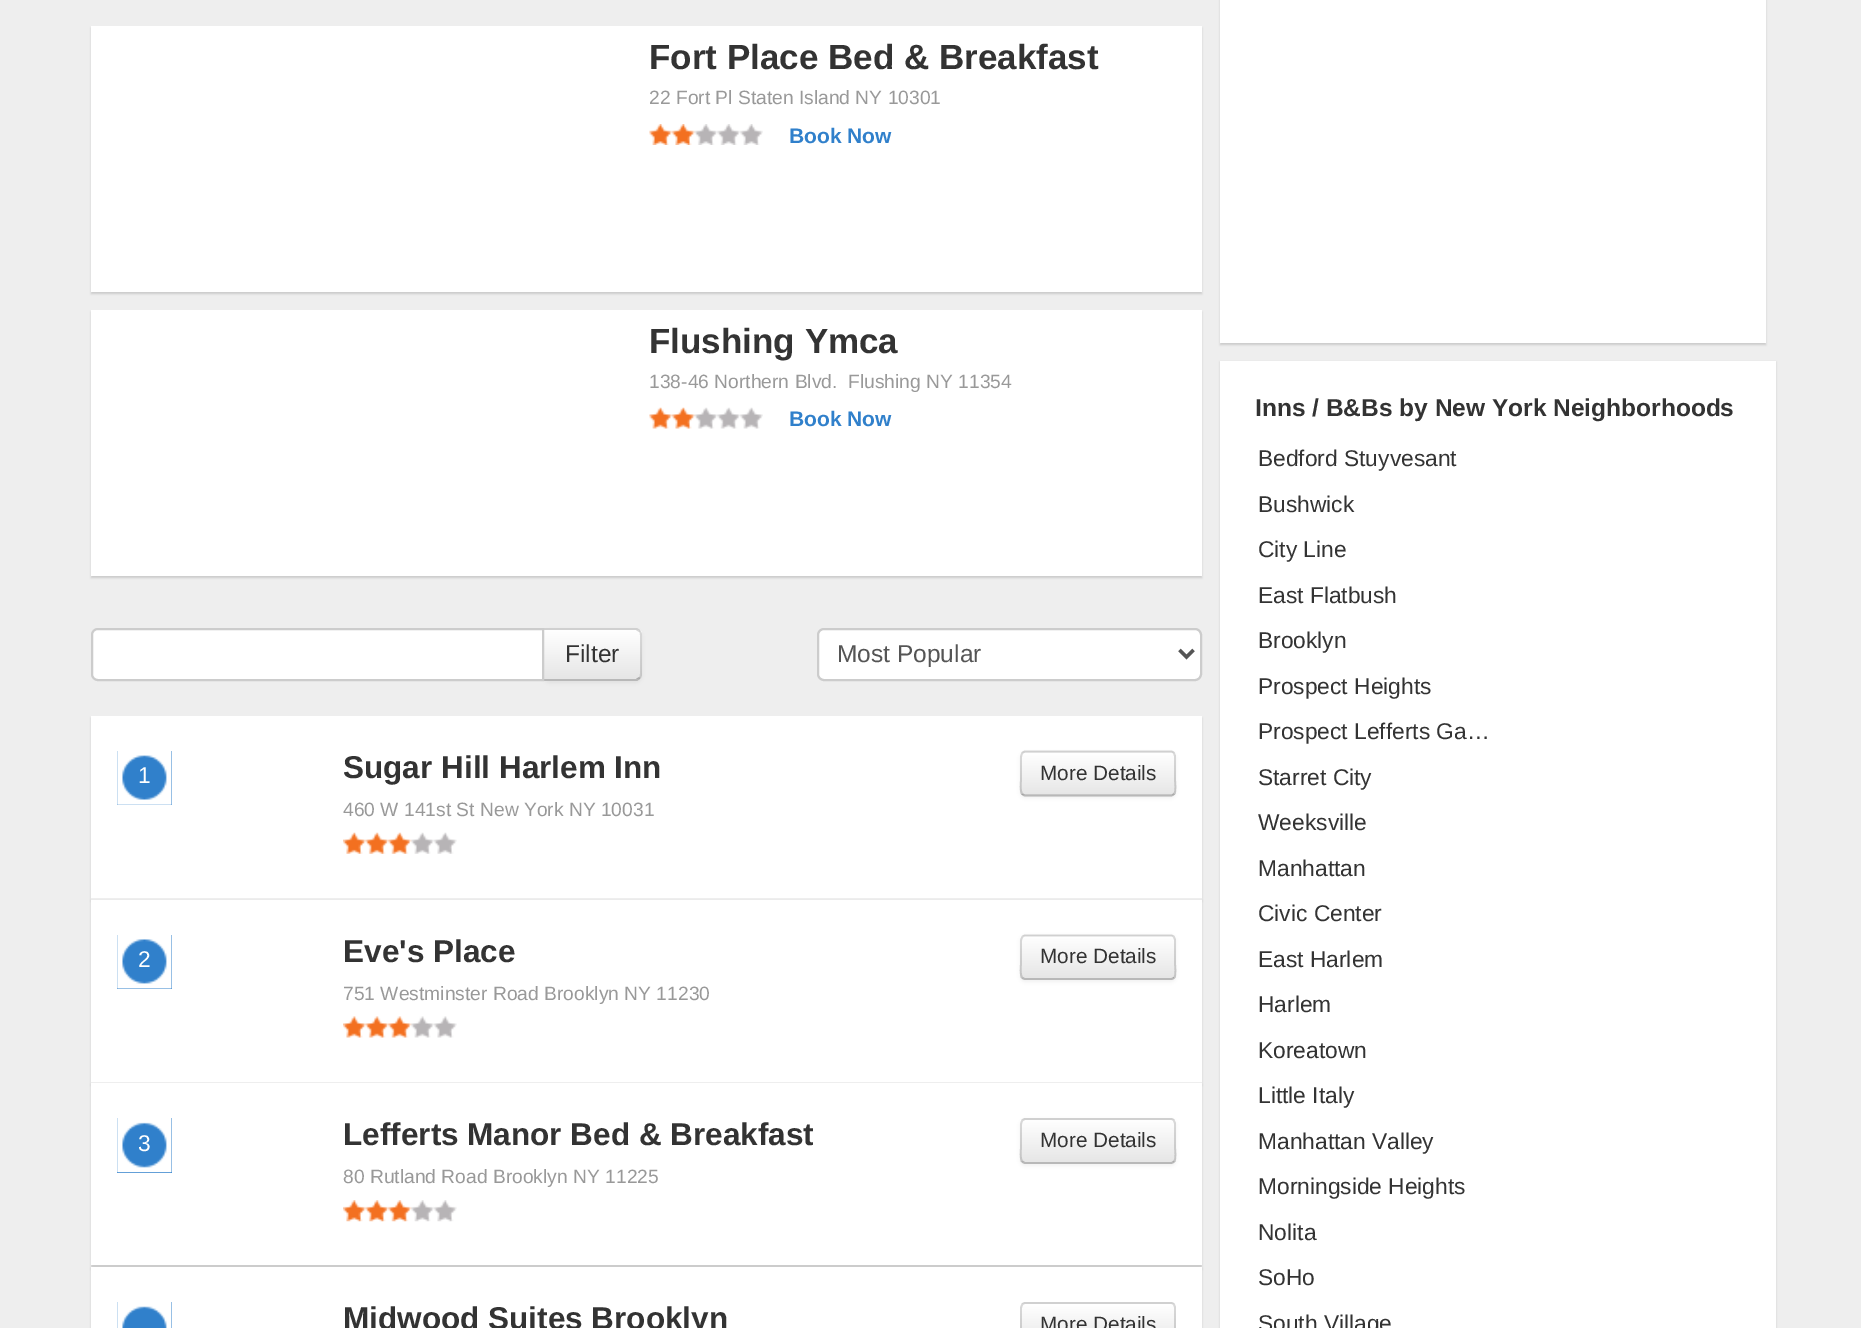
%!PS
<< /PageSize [1861 1328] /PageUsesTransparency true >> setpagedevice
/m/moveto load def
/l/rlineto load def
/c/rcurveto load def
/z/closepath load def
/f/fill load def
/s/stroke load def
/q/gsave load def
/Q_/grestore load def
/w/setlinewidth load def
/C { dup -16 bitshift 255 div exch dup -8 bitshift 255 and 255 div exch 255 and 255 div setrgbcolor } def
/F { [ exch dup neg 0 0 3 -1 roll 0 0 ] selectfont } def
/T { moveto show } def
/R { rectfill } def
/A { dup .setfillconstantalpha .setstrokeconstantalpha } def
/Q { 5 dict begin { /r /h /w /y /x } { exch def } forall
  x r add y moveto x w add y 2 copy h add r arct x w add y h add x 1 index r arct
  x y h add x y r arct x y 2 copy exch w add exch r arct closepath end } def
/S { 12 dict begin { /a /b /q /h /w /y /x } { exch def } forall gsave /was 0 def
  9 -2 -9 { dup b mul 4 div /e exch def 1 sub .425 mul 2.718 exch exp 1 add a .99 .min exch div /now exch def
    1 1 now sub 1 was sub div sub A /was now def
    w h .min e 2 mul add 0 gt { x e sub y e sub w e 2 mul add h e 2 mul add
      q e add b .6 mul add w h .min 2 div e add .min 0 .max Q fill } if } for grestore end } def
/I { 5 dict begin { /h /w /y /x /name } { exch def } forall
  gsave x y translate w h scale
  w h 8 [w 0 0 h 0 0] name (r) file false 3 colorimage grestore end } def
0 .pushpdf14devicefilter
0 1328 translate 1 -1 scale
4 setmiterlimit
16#EEEEEE C
0 0 1861 1328 R
16#CBCBCB C
91 28 1111 266 0 1 1 S
16#FFFFFF C
91 26 1111 266 R
/LiberationSans-Bold 35 F
16#333333 C
(Fort Place Bed & Breakfast) 649 69 T
/LiberationSans-Regular 19.25 F
16#999999 C
(22 Fort Pl Staten Island NY 10301) 649 104 T
(1.rgb) 649 124 114 21 I
/LiberationSans-Bold 21 F
16#3080CB C
(Book Now) 789 143 T
16#CBCBCB C
91 312 1111 266 0 1 1 S
16#FFFFFF C
91 310 1111 266 R
/LiberationSans-Bold 35 F
16#333333 C
(Flushing Ymca) 649 353 T
/LiberationSans-Regular 19.25 F
16#999999 C
(138-46 Northern Blvd.) 649 388 T
(Flushing NY 11354) 848 388 T
(2.rgb) 649 407 114 22 I
/LiberationSans-Bold 21 F
16#3080CB C
(Book Now) 789 426 T
16#000000 C
543 630 99 53 7 2 .05 S
16#F5F5F5 C
543 628 m 92 0 l 4 0 7 3 7 7 c 0 39 l 0 4 -3 7 -7 7 c -92 0 l z f
q
543 628 m 92 0 l 4 0 7 3 7 7 c 0 39 l 0 4 -3 7 -7 7 c -92 0 l z clip newpath
q 544 630 m 98 0 l 0 49 l -98 0 l z clip newpath
<< /ShadingType 2 /ColorSpace /DeviceRGB /Coords [592 630 592 679] /Extend [true true] /Function << /FunctionType 2 /Domain [0 1] /C0 [1 1 1] /C1 [.902 .902 .902] /N 1 >> >> shfill Q_
Q_
0.2 A
16#FFFFFF C
544 632 m 91 0 l 6 0 5 7 5 12 c 0 33 l 1 -1 1 -2 1 -3 c 0 -39 l 0 -3 -2 -5 -5 -5 c -92 0 l z f
0.15 A
16#000000 C
542 628 m 95 0 l 3 2 l -1 2 l -3 -2 l -92 0 l z f
640 630 m 1 1 2 3 2 5 c 0 39 l 0 2 -1 4 -2 5 c -1 -2 l 1 0 1 -2 1 -3 c 0 -39 l 0 -1 0 -3 -1 -3 c z f
0.25 A
640 679 m -3 2 l -95 0 l 2 -2 l 92 0 l 3 -2 l z f
1 A
16#FFFFFF C
98 629 m 445 0 l 0 51 l -445 0 l -3.5 0 -6 -2.5 -6 -6 c 0 -39 l 0 -3.5 2.5 -6 6 -6 c z q f Q_
16#CCCCCC C
2 w
s
/LiberationSans-Regular 24.5 F
16#333333 C
(Filter) 565 662 T
16#FFFFFF C
818 629 383 51 6 Q q f Q_
16#CCCCCC C
s
16#555555 C
3.5 w
1179.5 650 m 7 7 l 7 -7 l s
(Most Popular) 837 662 T
16#CBCBCB C
91 718 1111 183 0 1 1 S
16#FFFFFF C
91 716 1111 182 R
16#EEEEEE C
91 898 1111 2 R
16#3080CB C
117 751 55 54 R
(3.rgb) 117 751 55 54 I
/LiberationSans-Regular 22.75 F
16#FFFFFF C
(1) 138 783 T
/LiberationSans-Bold 31.5 F
16#333333 C
(Sugar Hill Harlem Inn) 343 778 T
16#000000 C
1020 753 156 45 5 2 .05 S
16#F5F5F5 C
1020 751 156 45 5 Q f
q
1020 751 156 45 5 Q clip newpath
q 1020 753 m 156 0 l 0 42 l -156 0 l z clip newpath
<< /ShadingType 2 /ColorSpace /DeviceRGB /Coords [1098 753 1098 795] /Extend [true true] /Function << /FunctionType 2 /Domain [0 1] /C0 [1 1 1] /C1 [.902 .902 .902] /N 1 >> >> shfill Q_
Q_
0.25 A
16#000000 C
1.8 w
1174 794 m -1 1 -2 1.5 -3 1.5 c -145.5 0 l -1 0 -2.5 -.5 -3 -1.5 c s
0.15 A
1022.5 794 m -3 -2.5 -1.5 -11.5 -1.5 -14.5 c 0 -17.5 l 0 -3.5 -1 -10.5 4.5 -10.5 c 145.5 0 l 5 0 4 7 4 10.5 c 0 17.5 l 0 3 1.5 12 -1 14.5 c s
/LiberationSans-Regular 20.75 F
1 A
16#333333 C
(More Details) 1040 780 T
/LiberationSans-Regular 19.25 F
16#999999 C
(460 W 141st St New York NY 10031) 343 816 T
(4.rgb) 343 832 114 22 I
16#CBCBCB C
91 901 1111 184 0 1 1 S
16#FFFFFF C
91 900 1111 182 R
16#EEEEEE C
91 1082 1111 1 R
16#3080CB C
117 935 55 54 R
(5.rgb) 117 935 55 54 I
/LiberationSans-Regular 22.75 F
16#FFFFFF C
(2) 138 967 T
/LiberationSans-Bold 31.5 F
16#333333 C
(Eve's Place) 343 962 T
16#000000 C
1020 936 156 46 5 2 .05 S
16#F5F5F5 C
1020 935 156 45 5 Q f
q
1020 935 156 45 5 Q clip newpath
q 1020 936 m 156 0 l 0 42 l -156 0 l z clip newpath
<< /ShadingType 2 /ColorSpace /DeviceRGB /Coords [1098 936 1098 978] /Extend [true true] /Function << /FunctionType 2 /Domain [0 1] /C0 [1 1 1] /C1 [.902 .902 .902] /N 1 >> >> shfill Q_
Q_
0.25 A
16#000000 C
1174 978 m -1 .5 -2 1 -3 1 c -145.5 0 l -1 0 -2.5 -.5 -3 -1 c s
0.15 A
1022.5 978 m -3 -3 -1.5 -12 -1.5 -15 c 0 -17.5 l 0 -3.5 -1 -10 4.5 -10 c 145.5 0 l 5 0 4 6.5 4 10 c 0 17.5 l 0 3 1.5 12 -1 15 c s
/LiberationSans-Regular 20.75 F
1 A
16#333333 C
(More Details) 1040 963 T
/LiberationSans-Regular 19.25 F
16#999999 C
(751 Westminster Road Brooklyn NY 11230) 343 1000 T
(6.rgb) 343 1016 114 22 I
16#CBCBCB C
91 1085 1111 184 0 1 1 S
16#FFFFFF C
91 1083 1111 182 R
16#3080CB C
117 1118 55 55 R
(7.rgb) 117 1118 55 55 I
/LiberationSans-Regular 22.75 F
16#FFFFFF C
(3) 138 1151 T
/LiberationSans-Bold 31.5 F
16#333333 C
(Lefferts Manor Bed & Breakfast) 343 1145 T
16#000000 C
1020 1120 156 46 5 2 .05 S
16#F5F5F5 C
1020 1118 156 46 5 Q f
q
1020 1118 156 46 5 Q clip newpath
q 1020 1120 m 156 0 l 0 42 l -156 0 l z clip newpath
<< /ShadingType 2 /ColorSpace /DeviceRGB /Coords [1098 1120 1098 1162] /Extend [true true] /Function << /FunctionType 2 /Domain [0 1] /C0 [1 1 1] /C1 [.902 .902 .902] /N 1 >> >> shfill Q_
Q_
0.25 A
16#000000 C
1174 1161.5 m -1 1 -2 1.5 -3 1.5 c -145.5 0 l -1 0 -2.5 -.5 -3 -1.5 c s
0.15 A
1022.5 1161.5 m -3 -2.5 -1.5 -11.5 -1.5 -14.5 c 0 -17.5 l 0 -3.5 -1 -10.5 4.5 -10.5 c 145.5 0 l 5 0 4 7 4 10.5 c 0 17.5 l 0 3 1.5 12 -1 14.5 c s
/LiberationSans-Regular 20.75 F
1 A
16#333333 C
(More Details) 1040 1147 T
/LiberationSans-Regular 19.25 F
16#999999 C
(80 Rutland Road Brooklyn NY 11225) 343 1183 T
(8.rgb) 343 1200 114 22 I
16#CBCBCB C
91 1269 1111 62 0 1 1 S
16#FFFFFF C
91 1267 1111 61 R
16#3080CB C
117 1302 55 26 R
(9.rgb) 117 1302 55 26 I
/LiberationSans-Bold 31.5 F
16#333333 C
(Midwood Suites Brooklyn) 343 1329 T
16#F5F5F5 C
1020 1302 156 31 5 Q f
q
1020 1302 156 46 5 Q clip newpath
q 1020 1304 m 156 0 l 0 24 l -156 0 l z clip newpath
<< /ShadingType 2 /ColorSpace /DeviceRGB /Coords [1098 1304 1098 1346] /Extend [true true] /Function << /FunctionType 2 /Domain [0 1] /C0 [1 1 1] /C1 [.902 .902 .902] /N 1 >> >> shfill Q_
Q_
0.15 A
16#000000 C
1022.5 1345.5 m -3 -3 -1.5 -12 -1.5 -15 c 0 -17.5 l 0 -3.5 -1 -10 4.5 -10 c 145.5 0 l 5 0 4 6.5 4 10 c 0 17.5 l 0 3 1.5 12 -1 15 c s
/LiberationSans-Regular 20.75 F
1 A
16#333333 C
(More Details) 1040 1331 T
16#CBCBCB C
1220 -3 546 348 0 1 1 S
16#FFFFFF C
1220 0 546 343 R
16#CBCBCB C
1220 362 556 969 0 1 1 S
16#FFFFFF C
1220 361 556 967 R
/LiberationSans-Bold 24.5 F
16#333333 C
(Inns / B&Bs by New York Neighborhoods) 1255 416 T
/LiberationSans-Regular 22.75 F
(Bedford Stuyvesant) 1258 466 T
(Bushwick) 1258 512 T
(City Line) 1258 557 T
(East Flatbush) 1258 603 T
(Brooklyn) 1258 648 T
(Prospect Heights) 1258 694 T
(Prospect Lefferts Ga…) 1258 739 T
(Starret City) 1258 785 T
(Weeksville) 1258 830 T
(Manhattan) 1258 876 T
(Civic Center) 1258 921 T
(East Harlem) 1258 967 T
(Harlem) 1258 1012 T
(Koreatown) 1258 1058 T
(Little Italy) 1258 1103 T
(Manhattan Valley) 1258 1149 T
(Morningside Heights) 1258 1194 T
(Nolita) 1258 1240 T
(SoHo) 1258 1285 T
(South Village) 1258 1331 T
.poppdf14devicefilter showpage
